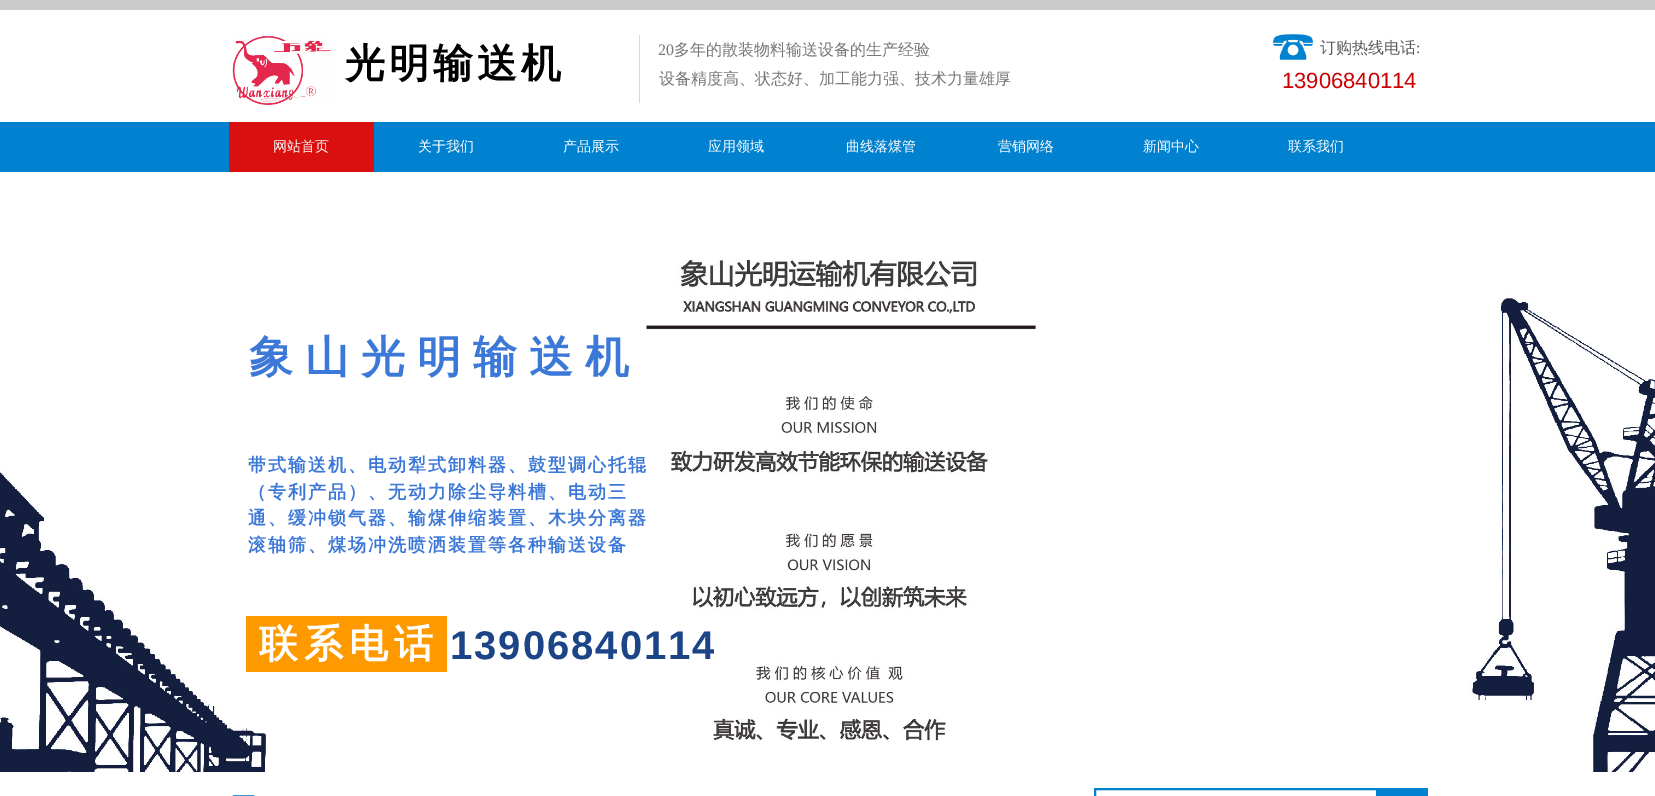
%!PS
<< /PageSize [1655 796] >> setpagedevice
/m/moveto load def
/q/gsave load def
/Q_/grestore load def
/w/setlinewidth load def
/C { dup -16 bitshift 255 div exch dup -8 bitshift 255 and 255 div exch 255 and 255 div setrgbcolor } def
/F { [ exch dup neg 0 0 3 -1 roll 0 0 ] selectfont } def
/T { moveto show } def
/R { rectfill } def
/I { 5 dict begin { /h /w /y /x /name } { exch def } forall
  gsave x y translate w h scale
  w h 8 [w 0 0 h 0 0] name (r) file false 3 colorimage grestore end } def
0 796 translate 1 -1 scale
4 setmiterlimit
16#FFFFFF C
0 0 1655 796 R
16#CCCCCC C
0 0 1655 10 R
(1.rgb) 232 36 99 70 I
/WenQuanYiZenHei-Bold 40 F
16#000000 C
345 77 m 4 0 (光明输送机) ashow
16#D9D9D9 C
639 35 1 68 R
/LiberationSerif-Regular 16 F
16#777777 C
(20) 658 55 T
/WenQuanYiZenHei-Medium 16 F
(多年的散装物料输送设备的生产经验) 674 55 T
(2.rgb) 1273 34 40 26 I
16#5A5A5A C
(订购热线电话) 1320 53 T
/LiberationSerif-Regular 16 F
(:) 1416 53 T
/WenQuanYiZenHei-Medium 16 F
16#777777 C
(设备精度高、状态好、加工能力强、技术力量雄厚) 659 84 T
/LiberationSans-Regular 22 F
16#CC0000 C
(13906840114) 1282 88 T
16#0082D0 C
0 122 1655 50 R
16#DA1010 C
229 122 145 50 R
/WenQuanYiZenHei-Medium 14 F
16#FFFFFF C
(网站首页) 273 151 T
(关于我们) 418 151 T
(产品展示) 563 151 T
(应用领域) 708 151 T
(曲线落煤管) 846 151 T
(营销网络) 998 151 T
(新闻中心) 1143 151 T
(联系我们) 1288 151 T
(3.rgb) 0 259 1655 513 I
/WenQuanYiZenHei-Bold 44 F
16#3C78D8 C
249 372 m 12 0 (象山光明输送机) ashow
/WenQuanYiZenHei-Bold 18 F
248 471 m 2 0 (带式输送机、电动犁式卸料器、鼓型调心托辊) ashow
248 498 m 2 0 (（专利产品）、无动力除尘导料槽、电动三) ashow
248 524 m 2 0 (通、缓冲锁气器、输煤伸缩装置、木块分离器) ashow
248 551 m 2 0 (滚轴筛、煤场冲洗喷洒装置等各种输送设备) ashow
16#FE9900 C
246 616 201 56 R
q
259 616 186 50 rectclip
/WenQuanYiZenHei-Bold 39 F
16#FFFFFF C
259 657 m 6 0 (联系电话) ashow
Q_
/LiberationSans-Bold 40 F
16#1C4587 C
450 659 m 2 0 (13906840114) ashow
(4.rgb) 232 795 23 1 I
16#0082D0 C
2 w
1095 789 282 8 rectstroke
1378 788 50 8 R
showpage
